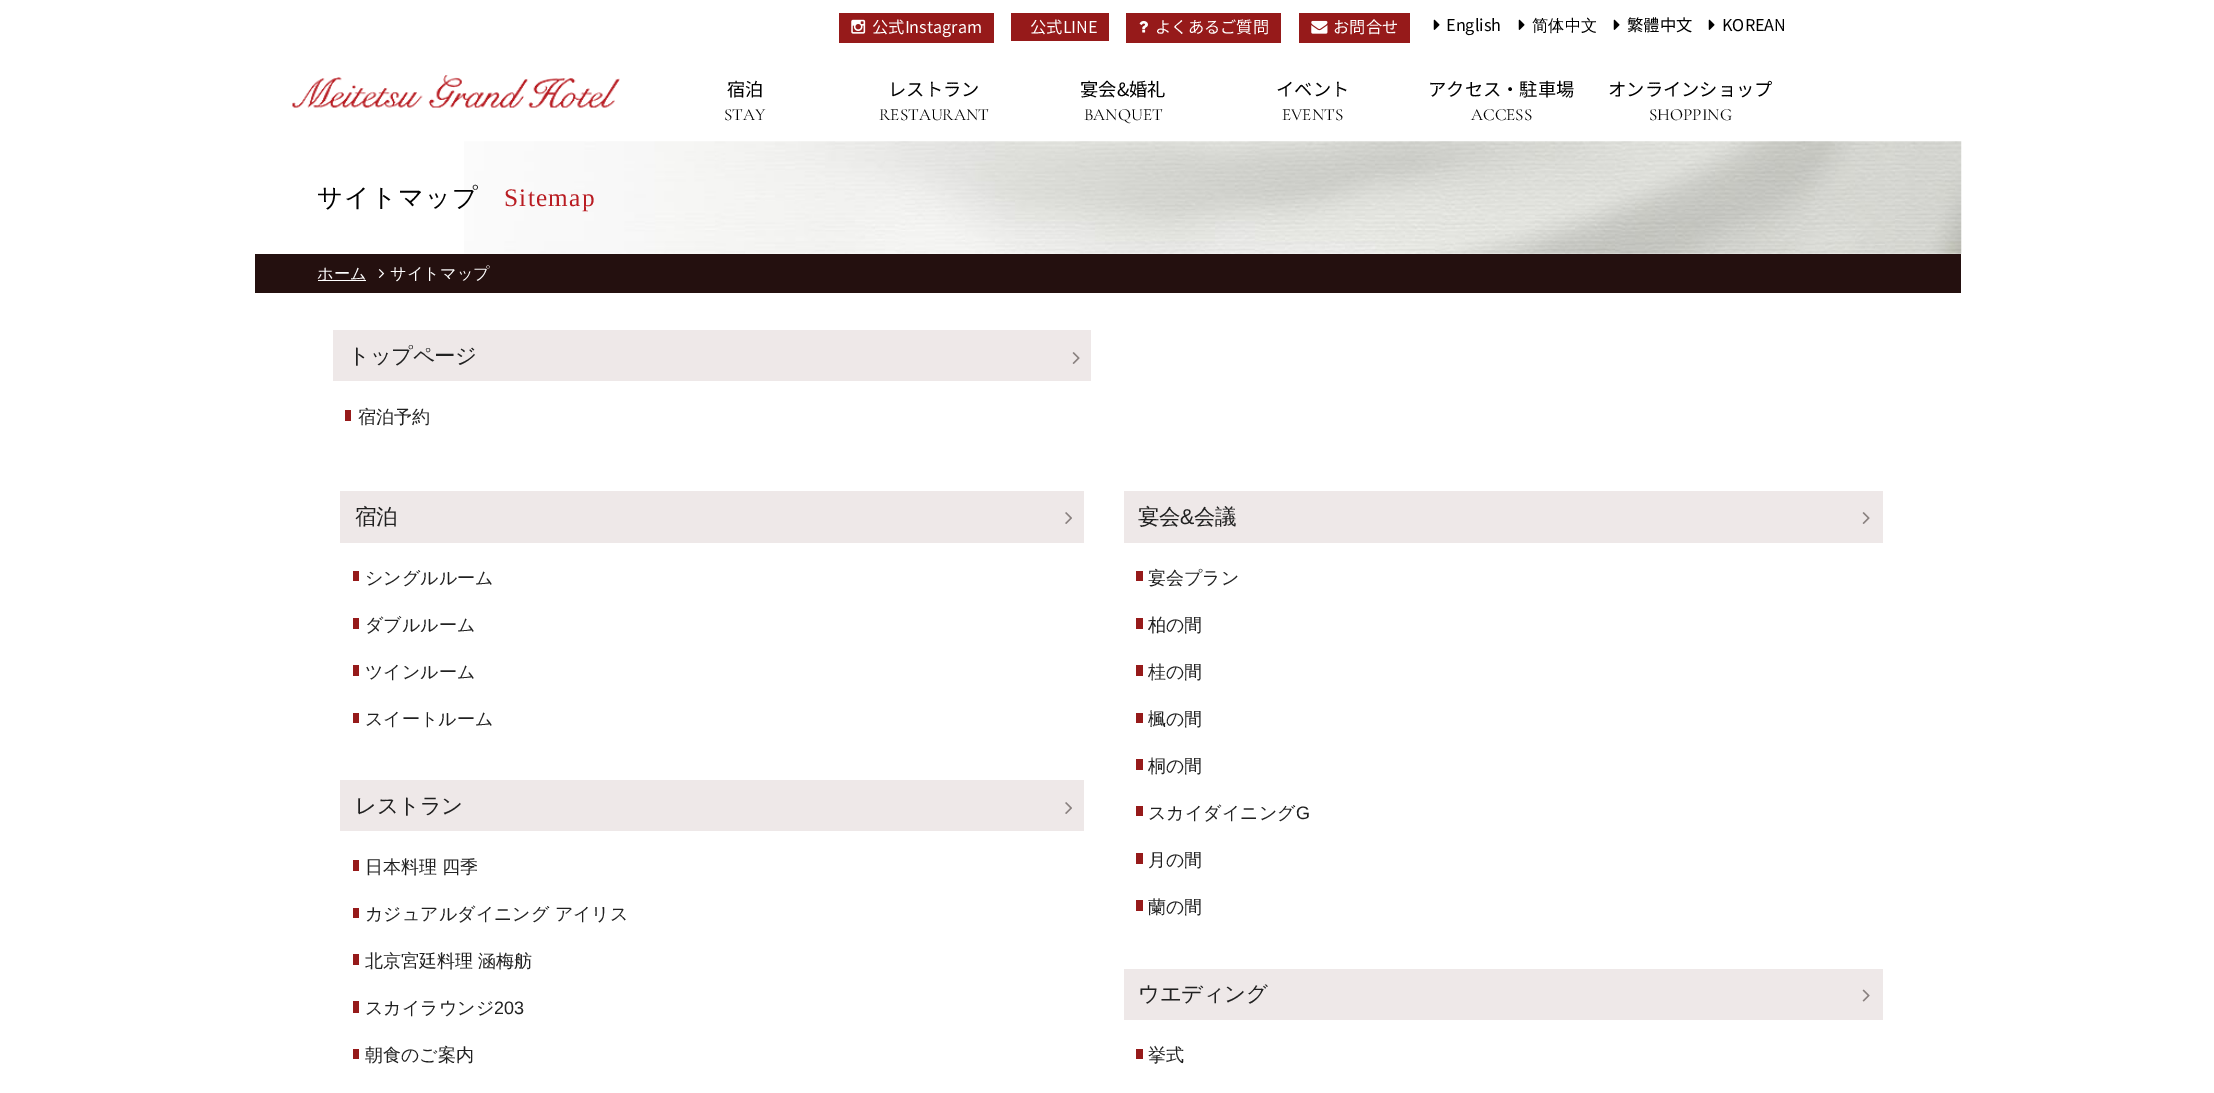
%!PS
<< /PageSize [2214 1093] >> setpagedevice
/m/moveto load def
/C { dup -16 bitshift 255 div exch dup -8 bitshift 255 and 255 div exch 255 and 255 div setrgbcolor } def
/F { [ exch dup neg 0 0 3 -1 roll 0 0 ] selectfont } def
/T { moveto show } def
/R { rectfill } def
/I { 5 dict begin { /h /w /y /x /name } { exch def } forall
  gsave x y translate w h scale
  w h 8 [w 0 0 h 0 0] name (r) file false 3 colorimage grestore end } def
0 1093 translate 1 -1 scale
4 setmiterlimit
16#FFFFFF C
0 0 2214 1093 R
(1.rgb) 292 75 328 33 I
16#961A1A C
839 13 155 30 R
(2.rgb) 851 19 15 15 I
/NotoSansJP-Regular 16.25 F
16#FFFFFF C
(公式Instagram) 872 33 T
16#961A1A C
1011 13 98 28 R
16#FFFFFF C
(公式LINE) 1030 33 T
16#961A1A C
1126 13 155 30 R
(3.rgb) 1139 20 9 13 I
16#FFFFFF C
(よくあるご質問) 1155 33 T
16#961A1A C
1299 13 111 30 R
(4.rgb) 1311 20 17 14 I
16#FFFFFF C
(お問合せ) 1333 33 T
(5.rgb) 1433 19 7 11 I
16#000000 C
(English) 1446 31 T
(5.rgb) 1518 19 7 11 I
/WenQuanYiZenHei-Medium 16.25 F
(简体中文) 1532 31 T
(5.rgb) 1613 19 7 11 I
/NotoSansJP-Regular 16.25 F
(繁體中文) 1627 31 T
(5.rgb) 1708 19 7 11 I
(KOREAN) 1722 31 T
/NotoSansJP-Regular 18.25 F
(宿泊) 727 96 T
/CormorantGaramond-Light 17 F
(STAY) 724 120 T
/NotoSansJP-Regular 18.25 F
(レストラン) 888 96 T
/CormorantGaramond-Light 17 F
(RESTAURANT) 879 120 T
/NotoSansJP-Regular 18.25 F
(宴会&婚礼) 1080 96 T
/CormorantGaramond-Light 17 F
(BANQUET) 1084 120 T
/NotoSansJP-Regular 18.25 F
(イベント) 1276 96 T
/CormorantGaramond-Light 17 F
(EVENTS) 1282 120 T
/NotoSansJP-Regular 18.25 F
(アクセス・駐車場) 1428 96 T
/CormorantGaramond-Light 17 F
(ACCESS) 1471 120 T
/NotoSansJP-Regular 18.25 F
(オンラインショップ) 1608 96 T
/CormorantGaramond-Light 17 F
(SHOPPING) 1649 120 T
(6.rgb) 464 141 1498 113 I
/WenQuanYiZenHei-Medium 25.25 F
317 206 m 1.25 0 (サイトマップ) ashow
/LiberationSerif-Regular 25.25 F
16#B91C22 C
504 206 m 1.25 0 (Sitemap) ashow
16#24100F C
255 254 1706 39 R
16#FFFFFF C
318 280 48 1 R
/WenQuanYiZenHei-Medium 16.25 F
(ホーム) 317 279 T
(7.rgb) 378 269 7 9 I
(サイトマップ) 390 279 T
16#EEE8E8 C
333 330 758 51 R
/WenQuanYiZenHei-Medium 21.5 F
16#212121 C
348 363 m -.5 0 (トップページ) ashow
(8.rgb) 1072 352 8 12 I
16#961A1A C
345 410 6 11 R
/WenQuanYiZenHei-Medium 18 F
16#212121 C
(宿泊予約) 358 423 T
16#EEE8E8 C
340 491 744 52 R
/WenQuanYiZenHei-Medium 21.5 F
16#212121 C
355 524 m -.5 0 (宿泊) ashow
(9.rgb) 1065 512 7 12 I
16#961A1A C
353 571 6 10 R
/WenQuanYiZenHei-Medium 18 F
16#212121 C
(シングルルーム) 365 584 T
16#961A1A C
353 618 6 11 R
16#212121 C
(ダブルルーム) 365 631 T
16#961A1A C
353 665 6 11 R
16#212121 C
(ツインルーム) 365 678 T
16#961A1A C
353 713 6 10 R
16#212121 C
(スイートルーム) 365 725 T
16#EEE8E8 C
340 780 744 51 R
/WenQuanYiZenHei-Medium 21.5 F
16#212121 C
355 813 m -.5 0 (レストラン) ashow
(9.rgb) 1065 802 7 12 I
16#961A1A C
353 860 6 11 R
/WenQuanYiZenHei-Medium 18 F
16#212121 C
(日本料理 四季) 365 873 T
16#961A1A C
353 908 6 10 R
16#212121 C
(カジュアルダイニング アイリス) 365 920 T
16#961A1A C
353 954 6 11 R
16#212121 C
(北京宮廷料理 涵梅舫) 365 967 T
16#961A1A C
353 1001 6 12 R
16#212121 C
(スカイラウンジ) 365 1014 T
/LiberationSans-Regular 18 F
(203) 494 1014 T
16#961A1A C
353 1049 6 10 R
/WenQuanYiZenHei-Medium 18 F
16#212121 C
(朝食のご案内) 365 1061 T
16#EEE8E8 C
1124 491 759 52 R
/WenQuanYiZenHei-Medium 21.5 F
16#212121 C
1138 524 m -.5 0 (宴会) ashow
/LiberationSans-Regular 21.5 F
1180 524 m -.5 0 (&) ashow
/WenQuanYiZenHei-Medium 21.5 F
1194 524 m -.5 0 (会議) ashow
(8.rgb) 1862 512 8 12 I
16#961A1A C
1136 571 7 10 R
/WenQuanYiZenHei-Medium 18 F
16#212121 C
(宴会プラン) 1148 584 T
16#961A1A C
1136 618 7 11 R
16#212121 C
(柏の間) 1148 631 T
16#961A1A C
1136 665 7 11 R
16#212121 C
(桂の間) 1148 678 T
16#961A1A C
1136 713 7 10 R
16#212121 C
(楓の間) 1148 725 T
16#961A1A C
1136 759 7 11 R
16#212121 C
(桐の間) 1148 772 T
16#961A1A C
1136 806 7 10 R
16#212121 C
(スカイダイニング) 1148 819 T
/LiberationSans-Regular 18 F
(G) 1296 819 T
16#961A1A C
1136 853 7 11 R
/WenQuanYiZenHei-Medium 18 F
16#212121 C
(月の間) 1148 866 T
16#961A1A C
1136 900 7 11 R
16#212121 C
(蘭の間) 1148 913 T
16#EEE8E8 C
1124 969 759 51 R
/WenQuanYiZenHei-Medium 21.5 F
16#212121 C
1138 1001 m -.5 0 (ウエディング) ashow
(10.rgb) 1862 989 8 13 I
16#961A1A C
1136 1049 7 10 R
/WenQuanYiZenHei-Medium 18 F
16#212121 C
(挙式) 1148 1061 T
showpage
